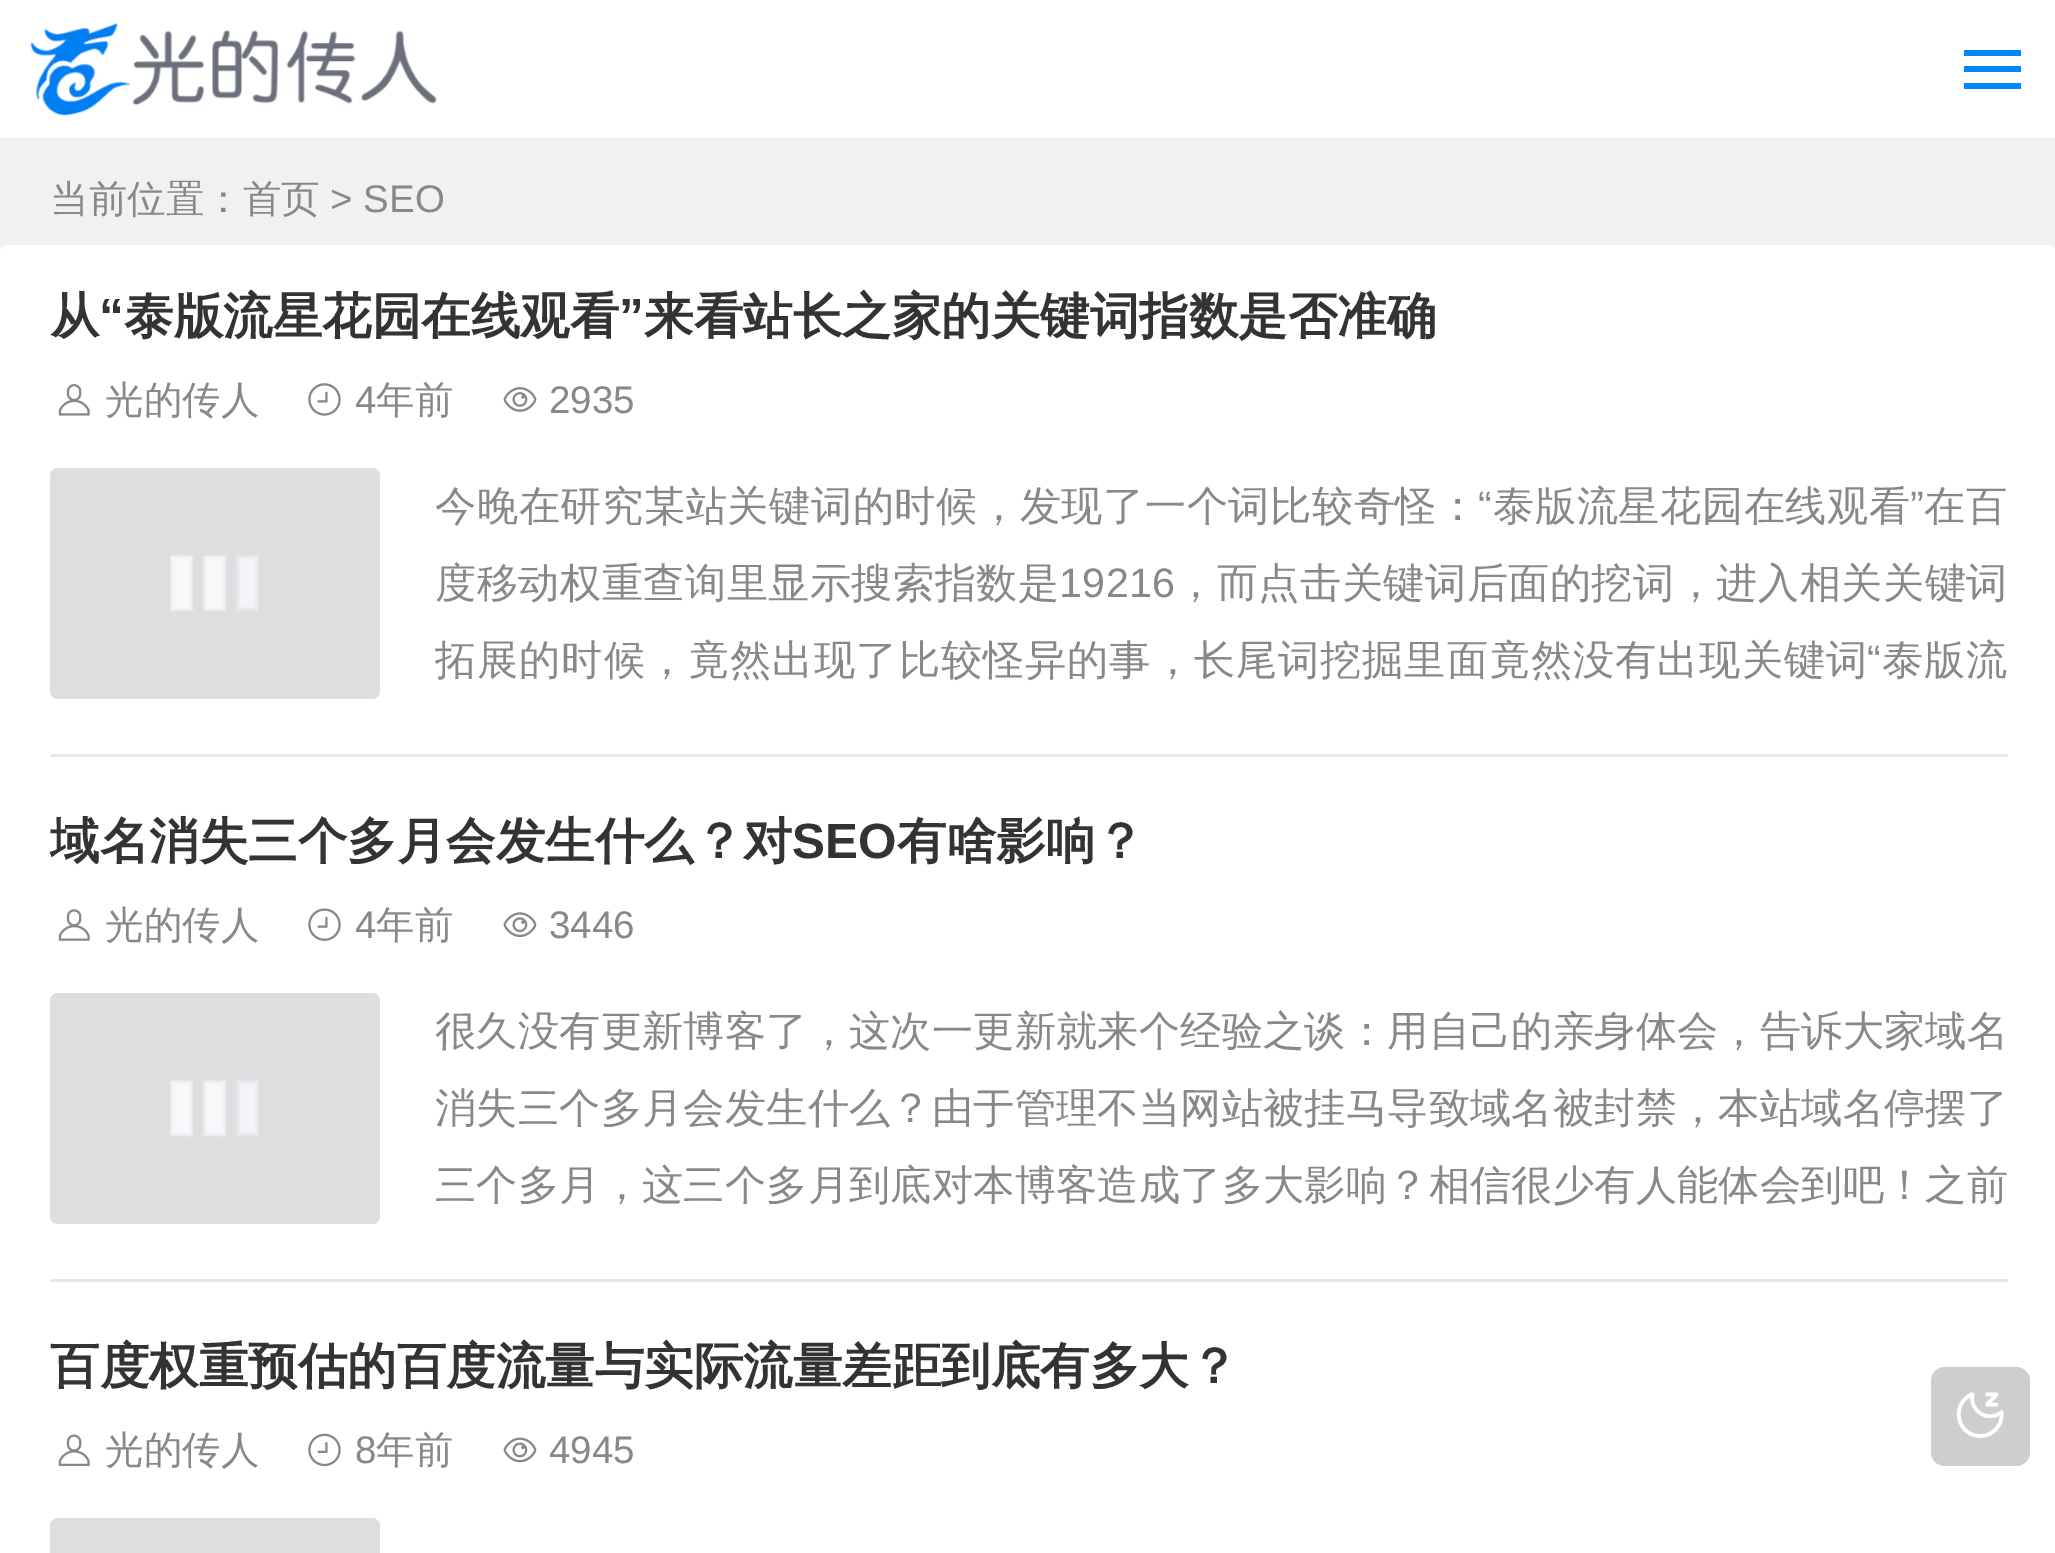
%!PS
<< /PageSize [2055 1553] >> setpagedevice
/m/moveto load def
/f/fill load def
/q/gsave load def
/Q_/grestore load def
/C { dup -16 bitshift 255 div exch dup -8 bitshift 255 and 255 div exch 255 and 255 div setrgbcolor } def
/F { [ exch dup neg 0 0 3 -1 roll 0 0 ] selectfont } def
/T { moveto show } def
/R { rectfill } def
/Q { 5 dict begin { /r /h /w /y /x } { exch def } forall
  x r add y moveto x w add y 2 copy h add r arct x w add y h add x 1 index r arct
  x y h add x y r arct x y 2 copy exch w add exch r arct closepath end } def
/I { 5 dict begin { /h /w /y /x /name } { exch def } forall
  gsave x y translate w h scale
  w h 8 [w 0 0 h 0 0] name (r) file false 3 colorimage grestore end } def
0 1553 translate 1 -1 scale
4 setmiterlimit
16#F1F1F1 C
0 0 2055 1553 R
16#FFFFFF C
0 0 2055 138 R
16#EEEEEE C
0 138 2055 3 R
(1.rgb) 30 23 407 93 I
16#0188FB C
1964 50 57 6 R
1964 66 57 6 R
1964 83 57 6 R
/WenQuanYiZenHei-Medium 38.5 F
16#888888 C
(当前位置：首页) 50 212 T
/LiberationSans-Regular 38.5 F
(> SEO) 330 212 T
16#FFFFFF C
0 245 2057 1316 8 Q f
16#E4E8EB C
50 754 1958 3 R
/WenQuanYiZenHei-Bold 49.5 F
16#333333 C
(从) 50 333 T
/LiberationSans-Bold 49.5 F
(“) 99 333 T
/WenQuanYiZenHei-Bold 49.5 F
(泰版流星花园在线观看) 124 333 T
/LiberationSans-Bold 49.5 F
(”) 619 333 T
/WenQuanYiZenHei-Bold 49.5 F
(来看站长之家的关键词指数是否准确) 644 333 T
(2.rgb) 58 384 32 32 I
/WenQuanYiZenHei-Medium 38.5 F
16#888888 C
(光的传人) 105 413 T
(3.rgb) 308 383 33 33 I
/LiberationSans-Regular 38.5 F
(4) 355 413 T
/WenQuanYiZenHei-Medium 38.5 F
(年前) 376 413 T
(4.rgb) 503 387 34 25 I
/LiberationSans-Regular 38.5 F
(2935) 549 413 T
16#DEDEDE C
50 468 330 231 8 Q f
(5.rgb) 170 555 89 57 I
/WenQuanYiZenHei-Medium 41.25 F
16#888888 C
435 520 m .5 0 (今晚在研究某站关键词的时候，发现了一个词比较奇怪：) ashow
/LiberationSans-Regular 41.25 F
1478 520 m .5 0 (“) ashow
/WenQuanYiZenHei-Medium 41.25 F
1493 520 m .5 0 (泰版流星花园在线观看) ashow
/LiberationSans-Regular 41.25 F
1910 520 m .5 0 (”) ashow
/WenQuanYiZenHei-Medium 41.25 F
1924 520 m .5 0 (在百) ashow
435 597 m .4 0 (度移动权重查询里显示搜索指数是) ashow
/LiberationSans-Regular 41.25 F
1059 597 m .4 0 (19216) ashow
/WenQuanYiZenHei-Medium 41.25 F
1175 597 m .4 0 (，而点击关键词后面的挖词，进入相关关键词) ashow
q
435 468 1573 231 rectclip
435 674 m .9 0 (拓展的时候，竟然出现了比较怪异的事，长尾词挖掘里面竟然没有出现关键词) ashow
Q_
/LiberationSans-Regular 41.25 F
1867 674 m .9 0 (“) ashow
/WenQuanYiZenHei-Medium 41.25 F
1882 674 m .9 0 (泰版流) ashow
16#E4E8EB C
50 1279 1958 3 R
/WenQuanYiZenHei-Bold 49.5 F
16#333333 C
(域名消失三个多月会发生什么？对) 50 858 T
/LiberationSans-Bold 49.5 F
(SEO) 792 858 T
/WenQuanYiZenHei-Bold 49.5 F
(有啥影响？) 897 858 T
(6.rgb) 58 909 32 32 I
/WenQuanYiZenHei-Medium 38.5 F
16#888888 C
(光的传人) 105 938 T
(7.rgb) 308 908 33 33 I
/LiberationSans-Regular 38.5 F
(4) 355 938 T
/WenQuanYiZenHei-Medium 38.5 F
(年前) 376 938 T
(8.rgb) 503 912 34 26 I
/LiberationSans-Regular 38.5 F
(3446) 549 938 T
16#DEDEDE C
50 993 330 231 8 Q f
(9.rgb) 170 1080 89 57 I
/WenQuanYiZenHei-Medium 41.25 F
16#888888 C
435 1045 m .15 0 (很久没有更新博客了，这次一更新就来个经验之谈：用自己的亲身体会，告诉大家域名) ashow
435 1122 m .15 0 (消失三个多月会发生什么？由于管理不当网站被挂马导致域名被封禁，本站域名停摆了) ashow
435 1199 m .15 0 (三个多月，这三个多月到底对本博客造成了多大影响？相信很少有人能体会到吧！之前) ashow
/WenQuanYiZenHei-Bold 49.5 F
16#333333 C
(百度权重预估的百度流量与实际流量差距到底有多大？) 50 1383 T
(10.rgb) 58 1434 32 33 I
/WenQuanYiZenHei-Medium 38.5 F
16#888888 C
(光的传人) 105 1463 T
(11.rgb) 308 1433 33 34 I
/LiberationSans-Regular 38.5 F
(8) 355 1463 T
/WenQuanYiZenHei-Medium 38.5 F
(年前) 376 1463 T
(12.rgb) 503 1437 34 26 I
/LiberationSans-Regular 38.5 F
(4945) 549 1463 T
16#DEDEDE C
50 1518 330 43 8 Q f
16#CECECE C
1931 1367 99 99 14 Q f
(13.rgb) 1956 1392 48 46 I
showpage
